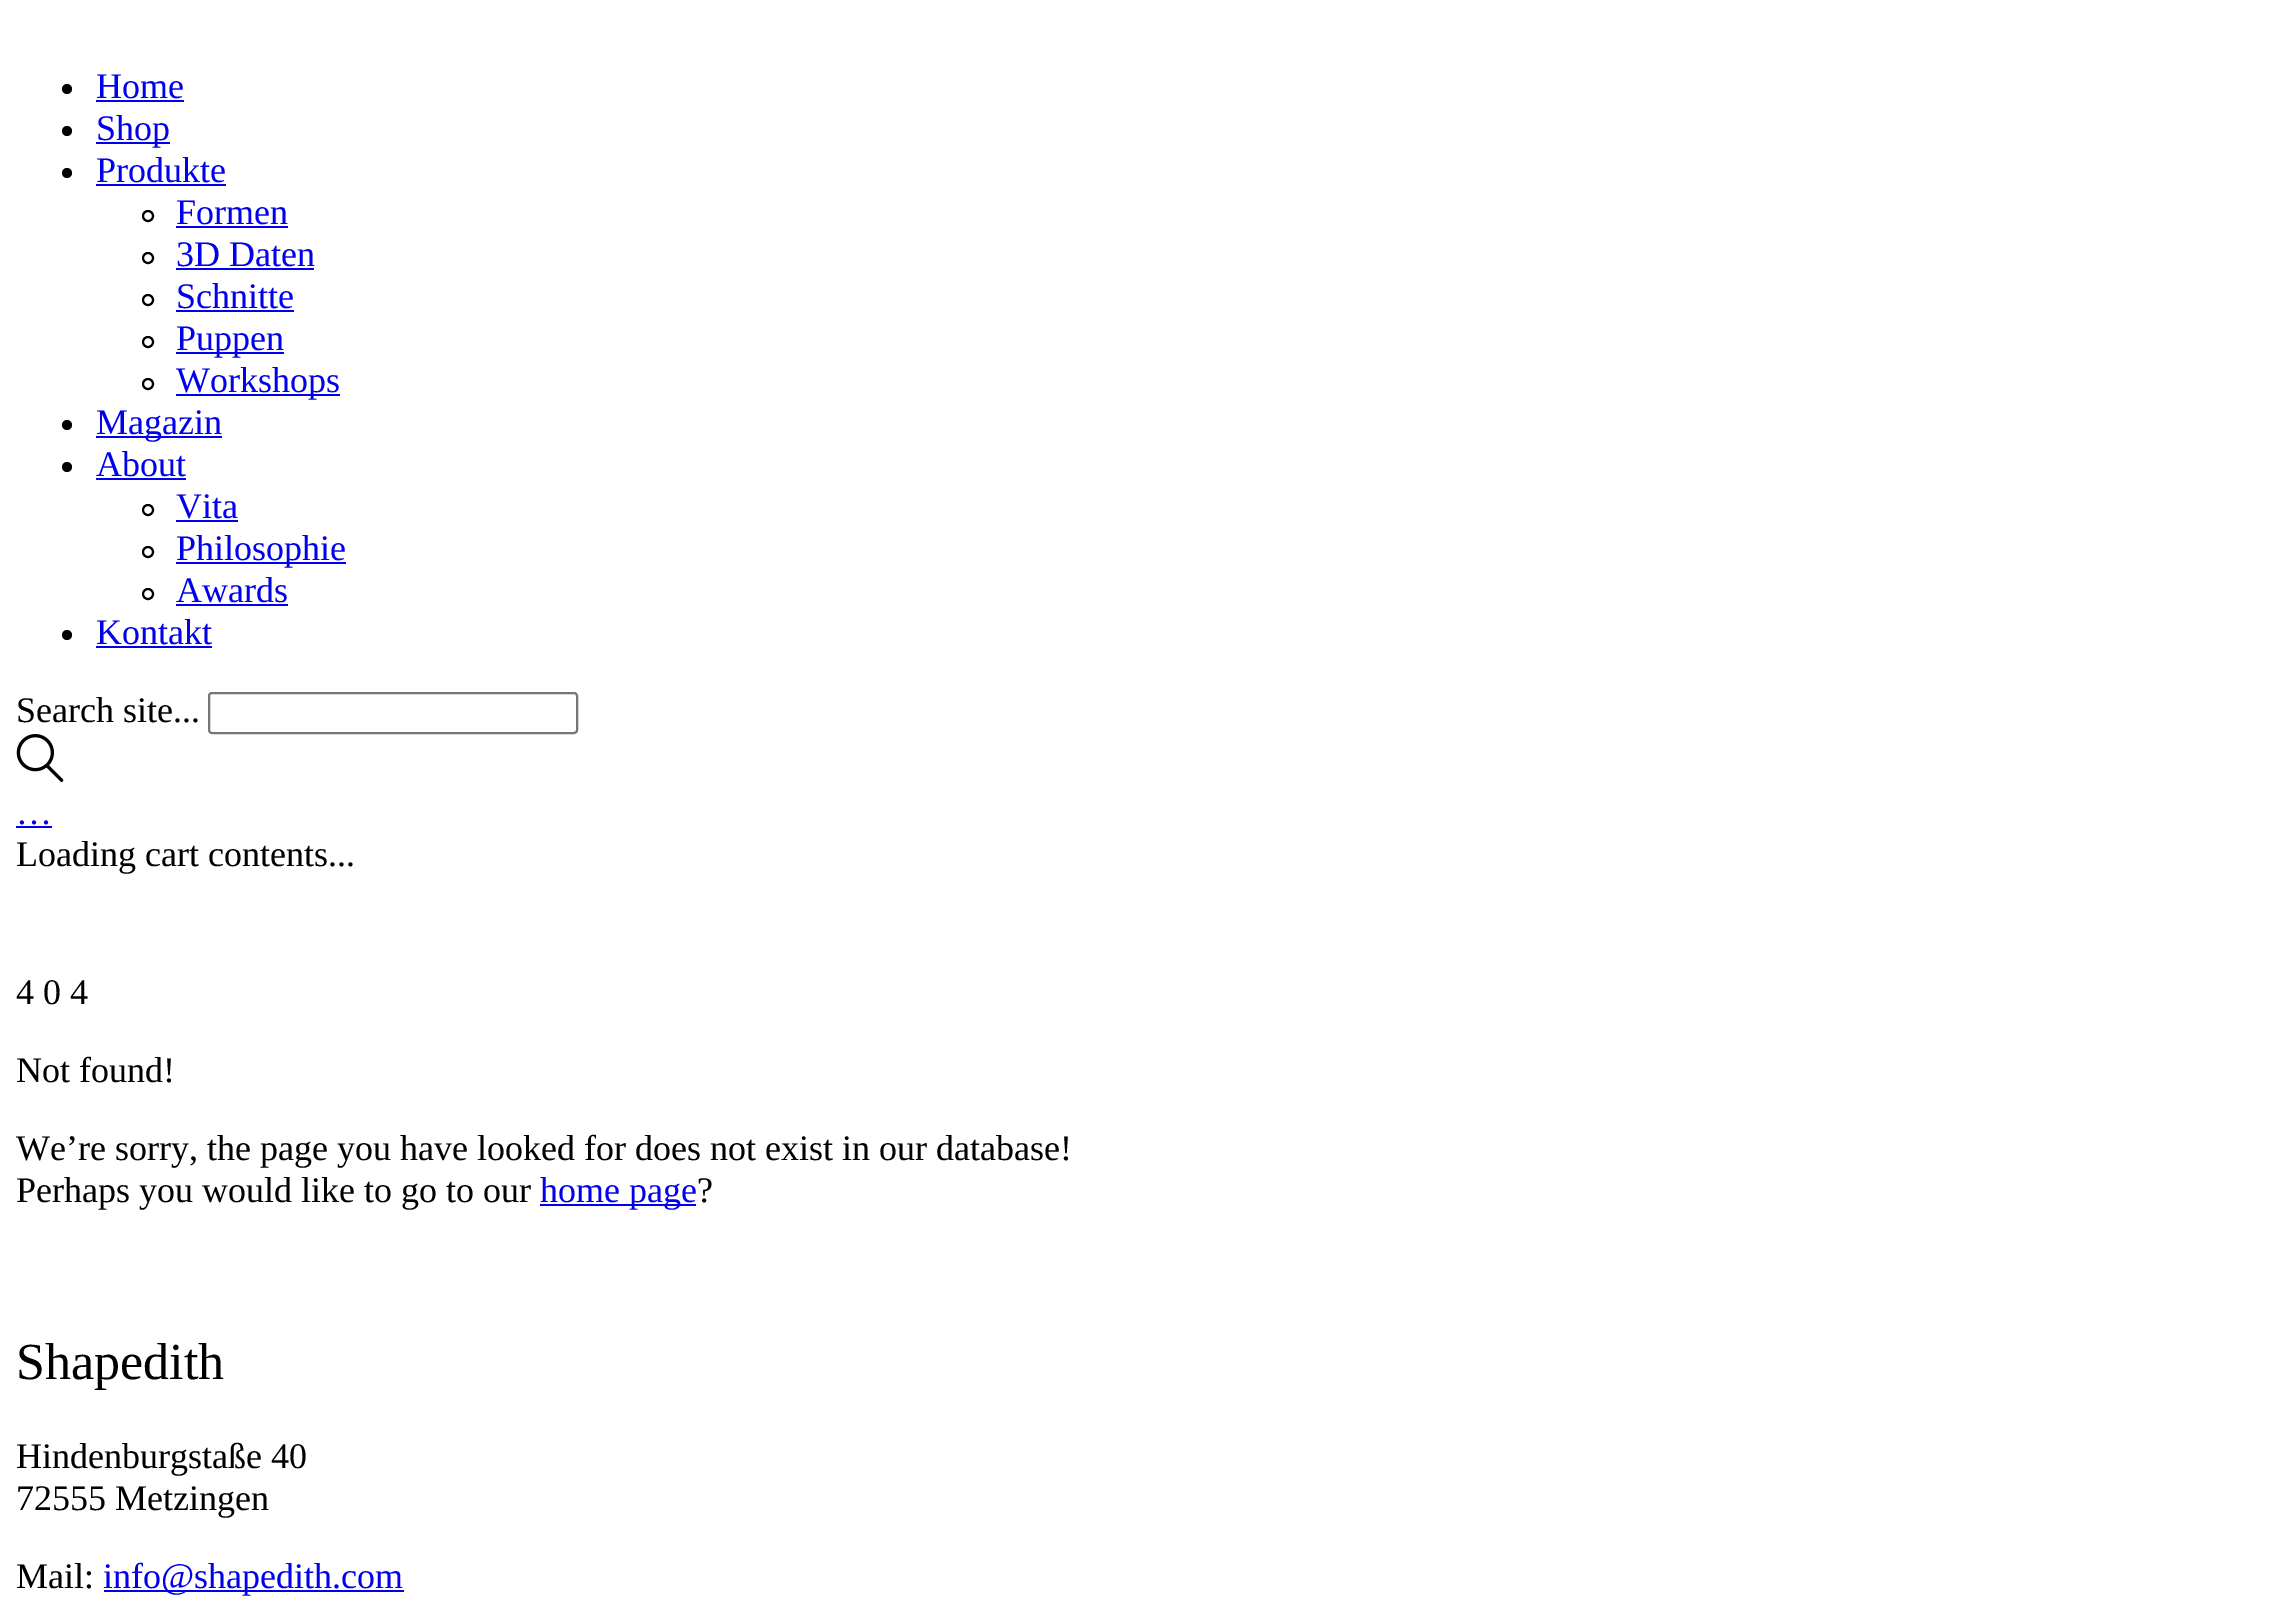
%!PS
<< /PageSize [2280 1614] >> setpagedevice
/f/fill load def
/s/stroke load def
/w/setlinewidth load def
/C { dup -16 bitshift 255 div exch dup -8 bitshift 255 and 255 div exch 255 and 255 div setrgbcolor } def
/F { [ exch dup neg 0 0 3 -1 roll 0 0 ] selectfont } def
/T { moveto show } def
/R { rectfill } def
/O { newpath 0 360 arc closepath } def
/Q { 5 dict begin { /r /h /w /y /x } { exch def } forall
  x r add y moveto x w add y 2 copy h add r arct x w add y h add x 1 index r arct
  x y h add x y r arct x y 2 copy exch w add exch r arct closepath end } def
/I { 5 dict begin { /h /w /y /x /name } { exch def } forall
  gsave x y translate w h scale
  w h 8 [w 0 0 h 0 0] name (r) file false 3 colorimage grestore end } def
0 1614 translate 1 -1 scale
4 setmiterlimit
16#FFFFFF C
0 0 2280 1614 R
16#000000 C
67 89 5 O f
/LiberationSerif-Regular 36 F
16#0000EE C
(Home) 96 98 T
96 100 88 2 R
16#000000 C
67 131 5 O f
16#0000EE C
96 142 74 2 R
(Shop) 96 140 T
16#000000 C
67 173 5 O f
16#0000EE C
(Produkte) 96 182 T
96 184 130 2 R
16#000000 C
2 w
148 216 5 O s
16#0000EE C
(Formen) 176 224 T
176 226 112 2 R
16#000000 C
148 258 5 O s
16#0000EE C
(3D Daten) 176 266 T
176 268 138 2 R
16#000000 C
148 300 5 O s
16#0000EE C
(Schnitte) 176 308 T
176 310 118 2 R
16#000000 C
148 342 5 O s
16#0000EE C
176 352 108 2 R
(Puppen) 176 350 T
16#000000 C
148 384 5 O s
16#0000EE C
176 394 164 2 R
(Workshops) 176 392 T
16#000000 C
67 425 5 O f
16#0000EE C
96 436 126 2 R
(Magazin) 96 434 T
16#000000 C
67 467 5 O f
16#0000EE C
(About) 96 476 T
96 478 90 2 R
16#000000 C
148 510 5 O s
16#0000EE C
(Vita) 176 518 T
176 520 62 2 R
16#000000 C
148 552 5 O s
16#0000EE C
176 562 170 2 R
(Philosophie) 176 560 T
16#000000 C
148 594 5 O s
16#0000EE C
(Awards) 176 602 T
176 604 112 2 R
16#000000 C
67 635 5 O f
16#0000EE C
(Kontakt) 96 644 T
96 646 116 2 R
16#000000 C
(Search site...) 16 722 T
16#767676 C
209 693 368 40 3 Q s
(1.rgb) 16 734 48 48 I
16#0000EE C
(…) 16 824 T
16 826 36 2 R
16#000000 C
(Loading cart contents...) 16 866 T
(4 0 4) 16 1004 T
(Not found!) 16 1082 T
(We’re sorry, the page you have looked for does not exist in our database!) 16 1160 T
(Perhaps you would like to go to our) 16 1202 T
16#0000EE C
540 1204 156 2 R
(home page) 540 1202 T
16#000000 C
(?) 697 1202 T
/LiberationSerif-Regular 52 F
(Shapedith) 16 1379 T
/LiberationSerif-Regular 36 F
(Hindenburgstaße 40) 16 1468 T
(72555 Metzingen) 16 1510 T
(Mail:) 16 1588 T
16#0000EE C
104 1590 300 2 R
(info@shapedith.com) 103 1588 T
showpage
